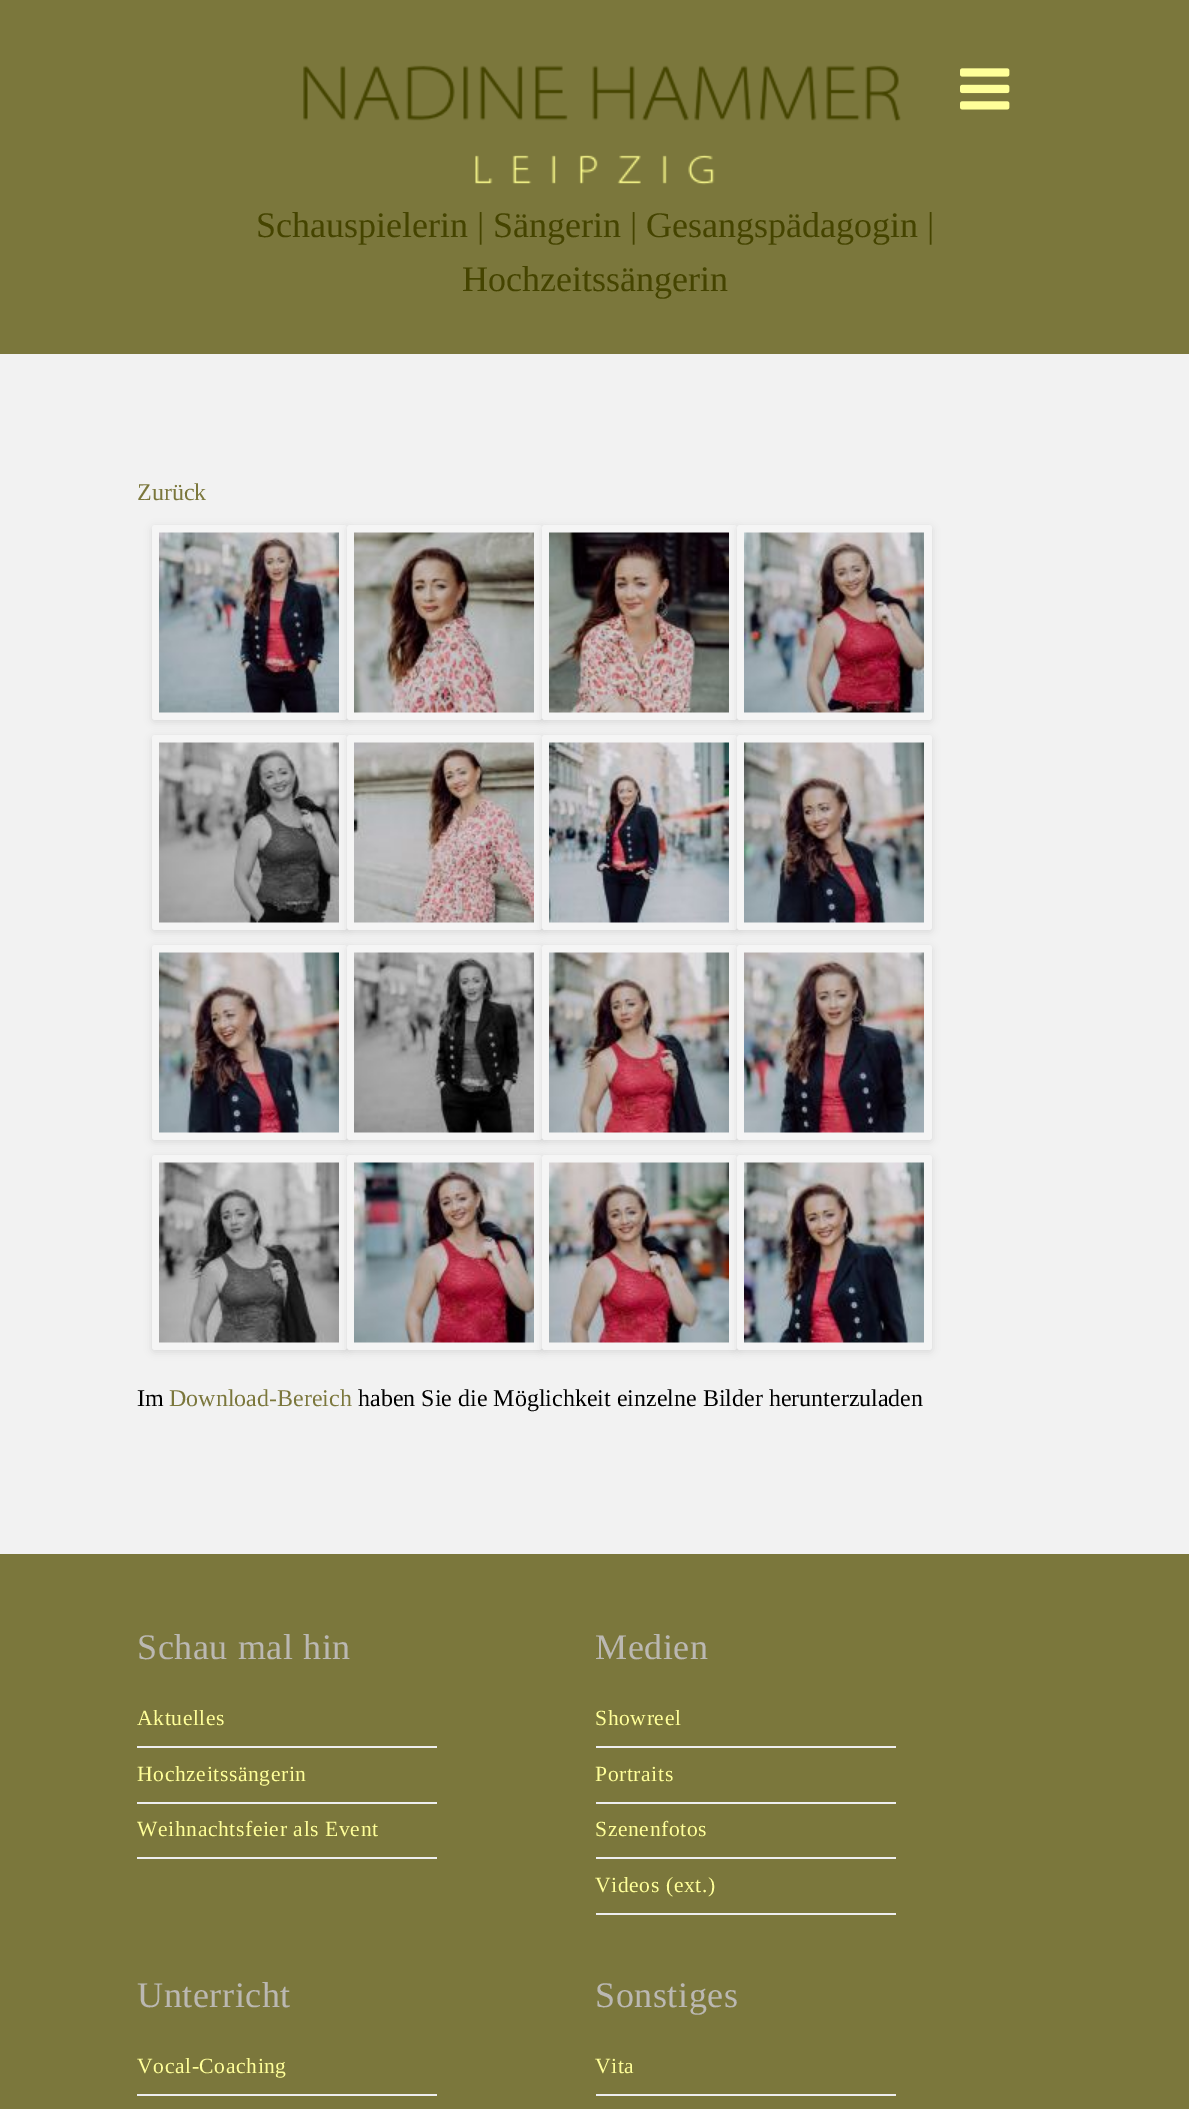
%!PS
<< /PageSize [1189 2109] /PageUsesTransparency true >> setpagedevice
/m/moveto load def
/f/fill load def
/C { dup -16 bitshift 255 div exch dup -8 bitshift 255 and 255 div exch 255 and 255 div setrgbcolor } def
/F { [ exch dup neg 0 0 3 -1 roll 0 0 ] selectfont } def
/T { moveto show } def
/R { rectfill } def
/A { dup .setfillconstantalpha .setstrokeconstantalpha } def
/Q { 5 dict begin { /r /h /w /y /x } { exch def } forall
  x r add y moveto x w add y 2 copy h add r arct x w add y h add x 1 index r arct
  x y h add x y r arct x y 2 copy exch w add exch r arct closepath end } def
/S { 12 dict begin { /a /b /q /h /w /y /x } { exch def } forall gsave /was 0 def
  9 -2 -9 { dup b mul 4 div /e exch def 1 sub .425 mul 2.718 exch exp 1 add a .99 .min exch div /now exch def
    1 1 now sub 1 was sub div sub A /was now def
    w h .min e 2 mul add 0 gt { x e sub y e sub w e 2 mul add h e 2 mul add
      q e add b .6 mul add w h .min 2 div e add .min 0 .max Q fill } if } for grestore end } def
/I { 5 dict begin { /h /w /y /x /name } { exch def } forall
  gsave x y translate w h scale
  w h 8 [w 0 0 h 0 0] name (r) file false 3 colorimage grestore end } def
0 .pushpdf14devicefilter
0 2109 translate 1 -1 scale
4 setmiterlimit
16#F2F2F2 C
0 0 1189 2109 R
16#7B773C C
0 0 1189 354 R
(1.rgb) 303 65 598 120 I
(2.rgb) 960 68 50 42 I
/LiberationSerif-Regular 36 F
16#454400 C
(Schauspielerin | Sängerin | Gesangspädagogin |) 256 237 T
(Hochzeitssängerin) 462 291 T
/LiberationSerif-Regular 24 F
16#7B773C C
(Zurück) 137 500 T
16#000000 C
152 527 195 195 3 4 .1 S
16#F5F5F5 C
152 525 195 195 3 Q f
(3.rgb) 159 532 180 181 I
16#000000 C
347 527 195 195 3 4 .1 S
16#F5F5F5 C
347 525 195 195 3 Q f
(4.rgb) 354 532 180 181 I
16#000000 C
542 527 195 195 3 4 .1 S
16#F5F5F5 C
542 525 195 195 3 Q f
(5.rgb) 549 532 180 181 I
16#000000 C
737 527 195 195 3 4 .1 S
16#F5F5F5 C
737 525 195 195 3 Q f
(6.rgb) 744 532 180 181 I
16#000000 C
152 737 195 195 3 4 .1 S
16#F5F5F5 C
152 735 195 195 3 Q f
(7.rgb) 159 742 180 181 I
16#000000 C
347 737 195 195 3 4 .1 S
16#F5F5F5 C
347 735 195 195 3 Q f
(8.rgb) 354 742 180 181 I
16#000000 C
542 737 195 195 3 4 .1 S
16#F5F5F5 C
542 735 195 195 3 Q f
(9.rgb) 549 742 180 181 I
16#000000 C
737 737 195 195 3 4 .1 S
16#F5F5F5 C
737 735 195 195 3 Q f
(10.rgb) 744 742 180 181 I
16#000000 C
152 947 195 195 3 4 .1 S
16#F5F5F5 C
152 945 195 195 3 Q f
(11.rgb) 159 952 180 181 I
16#000000 C
347 947 195 195 3 4 .1 S
16#F5F5F5 C
347 945 195 195 3 Q f
(12.rgb) 354 952 180 181 I
16#000000 C
542 947 195 195 3 4 .1 S
16#F5F5F5 C
542 945 195 195 3 Q f
(13.rgb) 549 952 180 181 I
16#000000 C
737 947 195 195 3 4 .1 S
16#F5F5F5 C
737 945 195 195 3 Q f
(14.rgb) 744 952 180 181 I
16#000000 C
152 1157 195 195 3 4 .1 S
16#F5F5F5 C
152 1155 195 195 3 Q f
(15.rgb) 159 1162 180 181 I
16#000000 C
347 1157 195 195 3 4 .1 S
16#F5F5F5 C
347 1155 195 195 3 Q f
(16.rgb) 354 1162 180 181 I
16#000000 C
542 1157 195 195 3 4 .1 S
16#F5F5F5 C
542 1155 195 195 3 Q f
(17.rgb) 549 1162 180 181 I
16#000000 C
737 1157 195 195 3 4 .1 S
16#F5F5F5 C
737 1155 195 195 3 Q f
(18.rgb) 744 1162 180 181 I
16#000000 C
(Im) 137 1406 T
16#7B773C C
(Download-Bereich) 169 1406 T
16#000000 C
(haben Sie die Möglichkeit einzelne Bilder herunterzuladen) 358 1406 T
16#7B773C C
0 1554 1189 555 R
/LiberationSerif-Regular 36 F
16#BBB8B2 C
137 1659 m .6 0 (Schau mal hin) ashow
16#EEEEEE C
137 1746 300 2 R
/LiberationSerif-Regular 21.6 F
16#FFFF99 C
137 1725 m .6 0 (Aktuelles) ashow
16#EEEEEE C
137 1802 300 2 R
16#FFFF99 C
137 1781 m .6 0 (Hochzeitssängerin) ashow
16#EEEEEE C
137 1857 300 2 R
16#FFFF99 C
137 1836 m .6 0 (Weihnachtsfeier als Event) ashow
/LiberationSerif-Regular 36 F
16#BBB8B2 C
595 1659 m .6 0 (Medien) ashow
16#EEEEEE C
596 1746 300 2 R
/LiberationSerif-Regular 21.6 F
16#FFFF99 C
595 1725 m .6 0 (Showreel) ashow
16#EEEEEE C
596 1802 300 2 R
16#FFFF99 C
595 1781 m .6 0 (Portraits) ashow
16#EEEEEE C
596 1857 300 2 R
16#FFFF99 C
595 1836 m .6 0 (Szenenfotos) ashow
16#EEEEEE C
596 1913 300 2 R
16#FFFF99 C
595 1892 m .6 0 (Videos \(ext.\)) ashow
/LiberationSerif-Regular 36 F
16#BBB8B2 C
137 2007 m .6 0 (Unterricht) ashow
16#EEEEEE C
137 2094 300 2 R
/LiberationSerif-Regular 21.6 F
16#FFFF99 C
137 2073 m .6 0 (Vocal-Coaching) ashow
/LiberationSerif-Regular 36 F
16#BBB8B2 C
595 2007 m .6 0 (Sonstiges) ashow
16#EEEEEE C
596 2094 300 2 R
/LiberationSerif-Regular 21.6 F
16#FFFF99 C
595 2073 m .6 0 (Vita) ashow
.poppdf14devicefilter showpage
